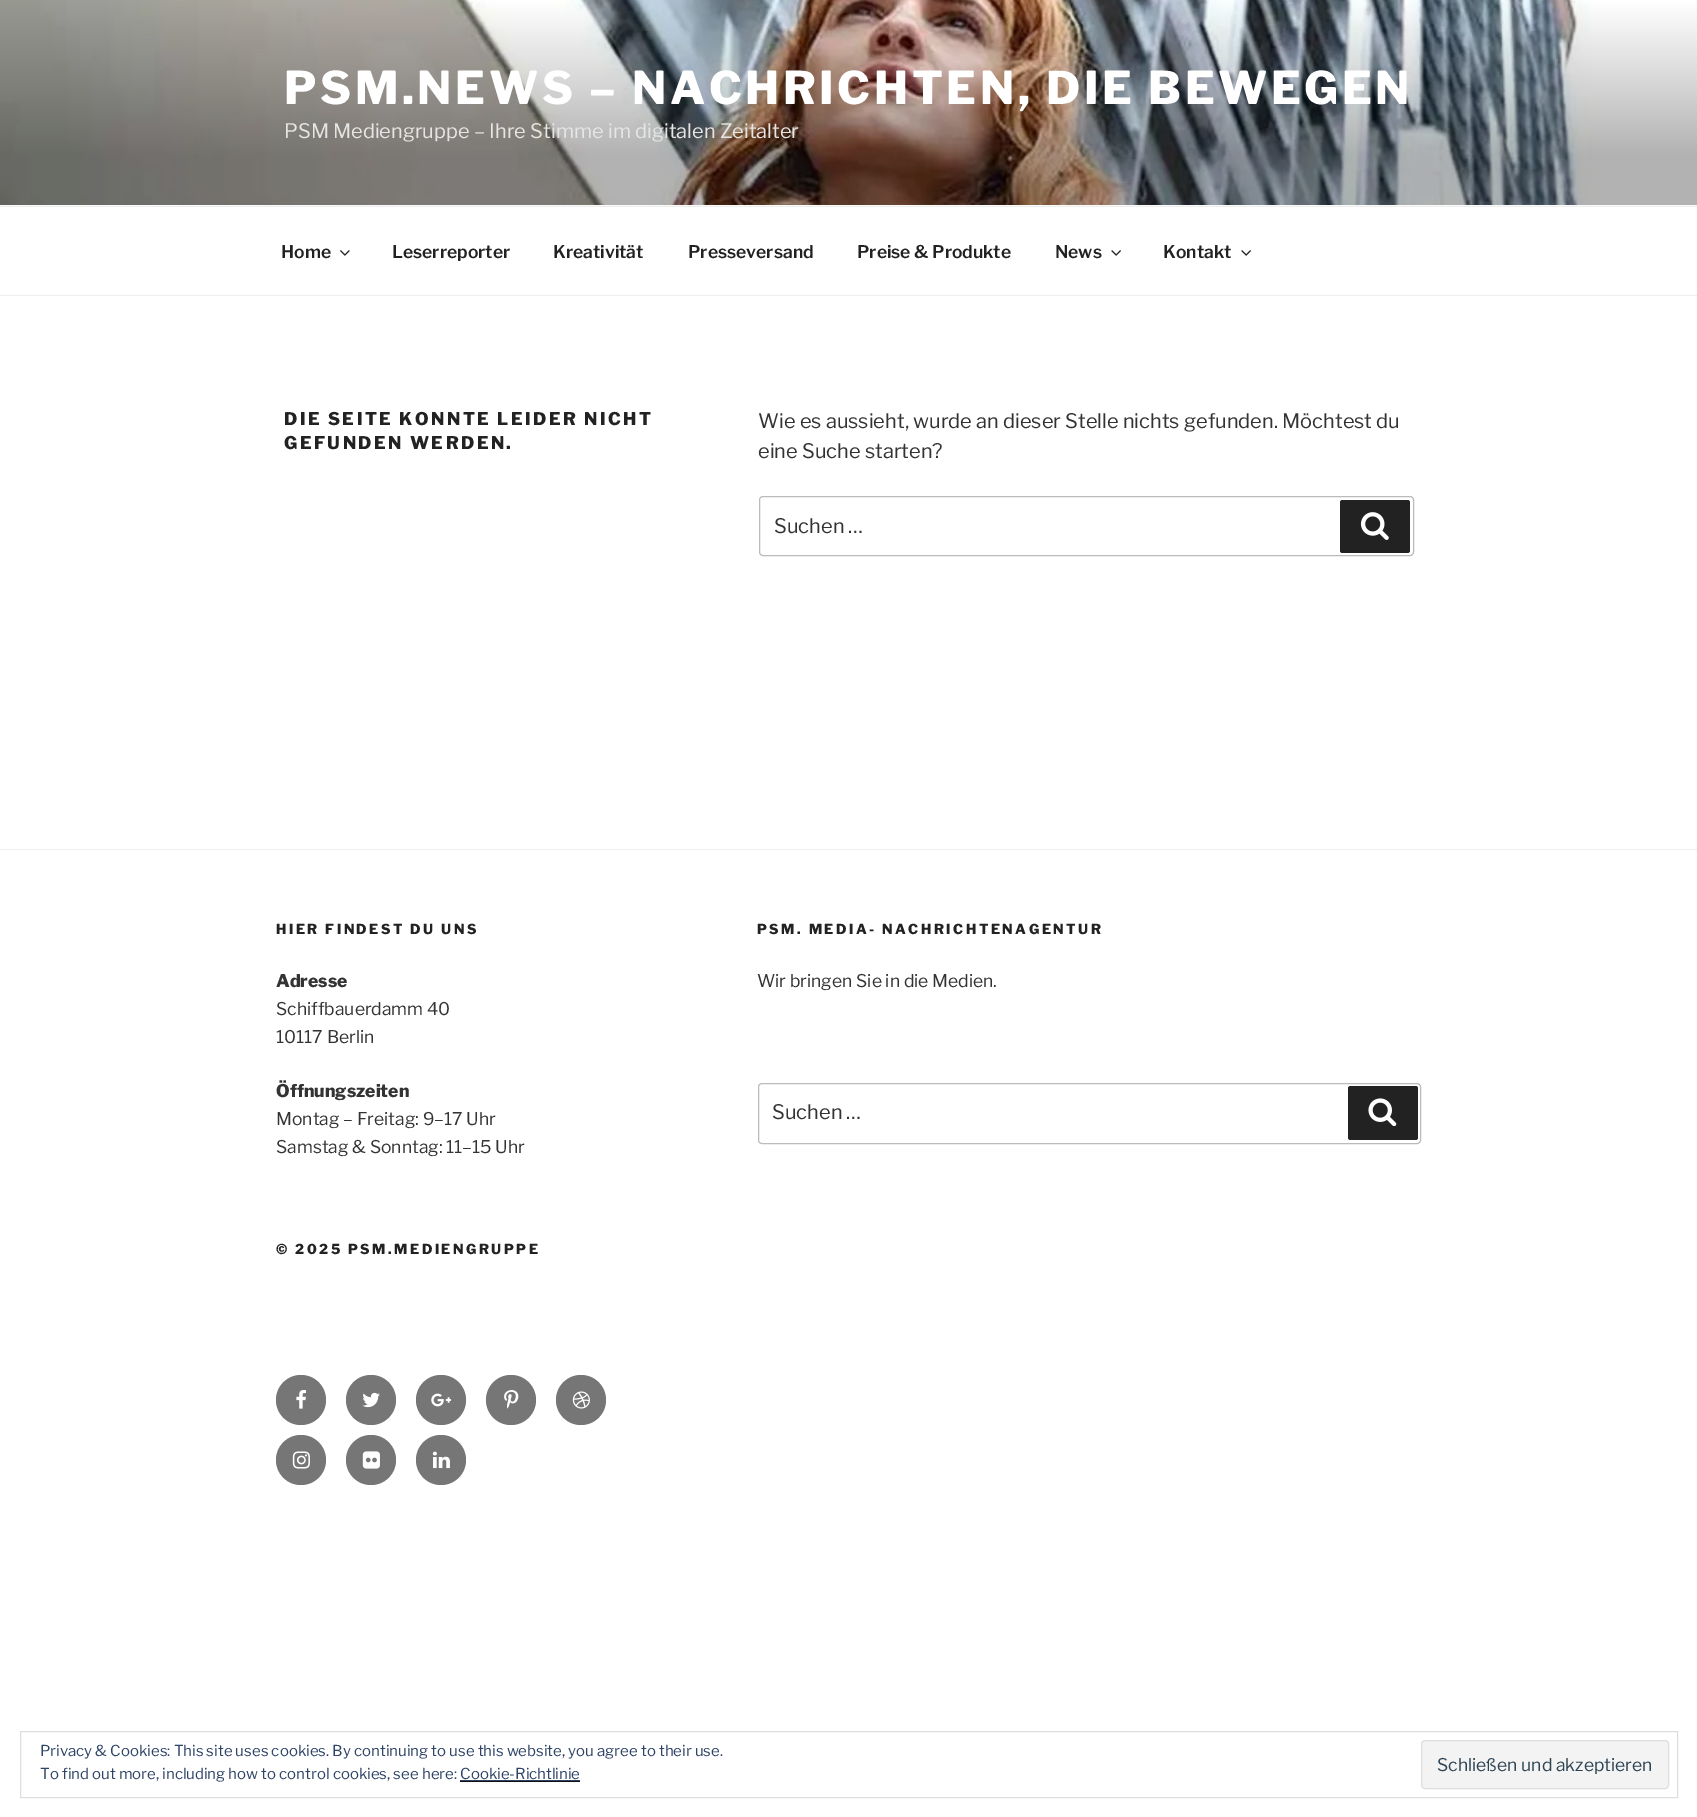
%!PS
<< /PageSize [1697 1817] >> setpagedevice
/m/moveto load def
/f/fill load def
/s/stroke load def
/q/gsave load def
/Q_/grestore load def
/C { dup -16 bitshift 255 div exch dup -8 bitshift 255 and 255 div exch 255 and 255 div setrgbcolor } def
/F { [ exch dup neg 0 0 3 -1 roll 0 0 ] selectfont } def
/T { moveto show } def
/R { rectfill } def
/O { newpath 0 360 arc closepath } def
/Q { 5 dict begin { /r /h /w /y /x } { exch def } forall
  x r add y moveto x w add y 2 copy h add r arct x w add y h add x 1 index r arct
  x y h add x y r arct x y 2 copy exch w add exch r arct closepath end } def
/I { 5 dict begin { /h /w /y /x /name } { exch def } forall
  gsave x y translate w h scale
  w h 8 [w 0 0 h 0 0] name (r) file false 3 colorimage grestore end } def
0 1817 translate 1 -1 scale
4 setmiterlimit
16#FFFFFF C
0 0 1697 1817 R
16#FAFAFA C
0 205 1697 1 R
(1.rgb) 0 0 1697 205 I
/LibreFranklin-Thin 45 F
16#FFFFFF C
284 104 m 3.6 0 (PSM.NEWS – NACHRICHTEN, DIE BEWEGEN) ashow
/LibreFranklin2-Thin 20 F
16#E6E5E4 C
(PSM Mediengruppe – Ihre Stimme im digitalen Zeitalter) 284 138 T
16#EEEEEE C
0 206 1697 1 R
0 295 1697 1 R
/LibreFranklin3-Thin 17.5 F
16#222222 C
(Home) 281 258 T
(2.rgb) 340 250 10 6 I
(Leserreporter) 392 258 T
(Kreativität) 553 258 T
(Presseversand) 688 258 T
(Preise & Produkte) 857 258 T
(News) 1055 258 T
(3.rgb) 1111 250 10 6 I
(Kontakt) 1163 258 T
(3.rgb) 1241 250 10 6 I
/LibreFranklin-Thin 17.5 F
284 425 m 2.45 0 (DIE SEITE KONNTE LEIDER NICHT) ashow
284 449 m 2.45 0 (GEFUNDEN WERDEN.) ashow
/LibreFranklin2-Thin 20 F
16#333333 C
(Wie es aussieht, wurde an dieser Stelle nichts gefunden. Möchtest du) 758 428 T
(eine Suche starten?) 758 458 T
16#BBBBBB C
759.5 496.5 654 59 3.5 Q s
16#333333 C
(Suchen …) 774 533 T
16#222222 C
1340 500 70 53 2.5 Q f
(4.rgb) 1360 512 29 28 I
16#EEEEEE C
0 849 1697 1 R
/LibreFranklin-Thin 13.75 F
16#222222 C
276 934 m 2.5 0 (HIER FINDEST DU UNS) ashow
/LibreFranklin-Thin 17.5 F
16#333333 C
(Adresse) 276 987 T
/LibreFranklin2-Thin 17.5 F
(Schiffbauerdamm 40) 276 1015 T
(10117 Berlin) 276 1043 T
/LibreFranklin-Thin 17.5 F
(Öffnungszeiten) 276 1097 T
/LibreFranklin2-Thin 17.5 F
(Montag – Freitag: 9–17 Uhr) 276 1125 T
(Samstag & Sonntag: 11–15 Uhr) 276 1153 T
/LibreFranklin-Thin 13.75 F
16#222222 C
276 1254 m 2.5 0 (© 2025 PSM.MEDIENGRUPPE) ashow
757 934 m 2.5 0 (PSM. MEDIA- NACHRICHTENAGENTUR) ashow
/LibreFranklin2-Thin 17.5 F
16#333333 C
(Wir bringen Sie in die Medien.) 757 987 T
16#BBBBBB C
758.5 1083.5 662 60 3.5 Q s
/LibreFranklin2-Thin 20 F
16#333333 C
(Suchen …) 772 1119 T
16#222222 C
1348 1086 70 54 2.5 Q f
(5.rgb) 1368 1098 29 28 I
16#767676 C
301 1400 25 O f
(6.rgb) 296 1390 10 19 I
371 1400 25 O f
(7.rgb) 362 1392 18 16 I
441 1400 25 O f
(8.rgb) 431 1393 20 14 I
511 1400 25 O f
(9.rgb) 504 1390 15 19 I
581 1400 25 O f
(10.rgb) 572 1391 18 18 I
301 1460 25 O f
(11.rgb) 292 1451 18 18 I
371 1460 25 O f
(12.rgb) 362 1451 18 18 I
441 1460 25 O f
(13.rgb) 432 1451 18 18 I
16#DEDEDE C
20.5 1731.5 1657 66 rectstroke
/LibreFranklin2-Thin 15 F
16#2E4467 C
(Privacy & Cookies: This site uses cookies. By continuing to use this website, you agree to their use.) 40 1756 T
(To find out more, including how to control cookies, see here: Cookie-Richtlinie) 40 1779 T
16#F3F3F3 C
1421.5 1740.5 247 48 3.5 Q q f Q_
16#DEDEDE C
s
/LibreFranklin2-Thin 17.5 F
16#2E4453 C
(Schließen und akzeptieren) 1437 1771 T
16#2E4467 C
460 1780 120 1 R
16#0F0F0F C
460 1781 120 1 R
showpage
